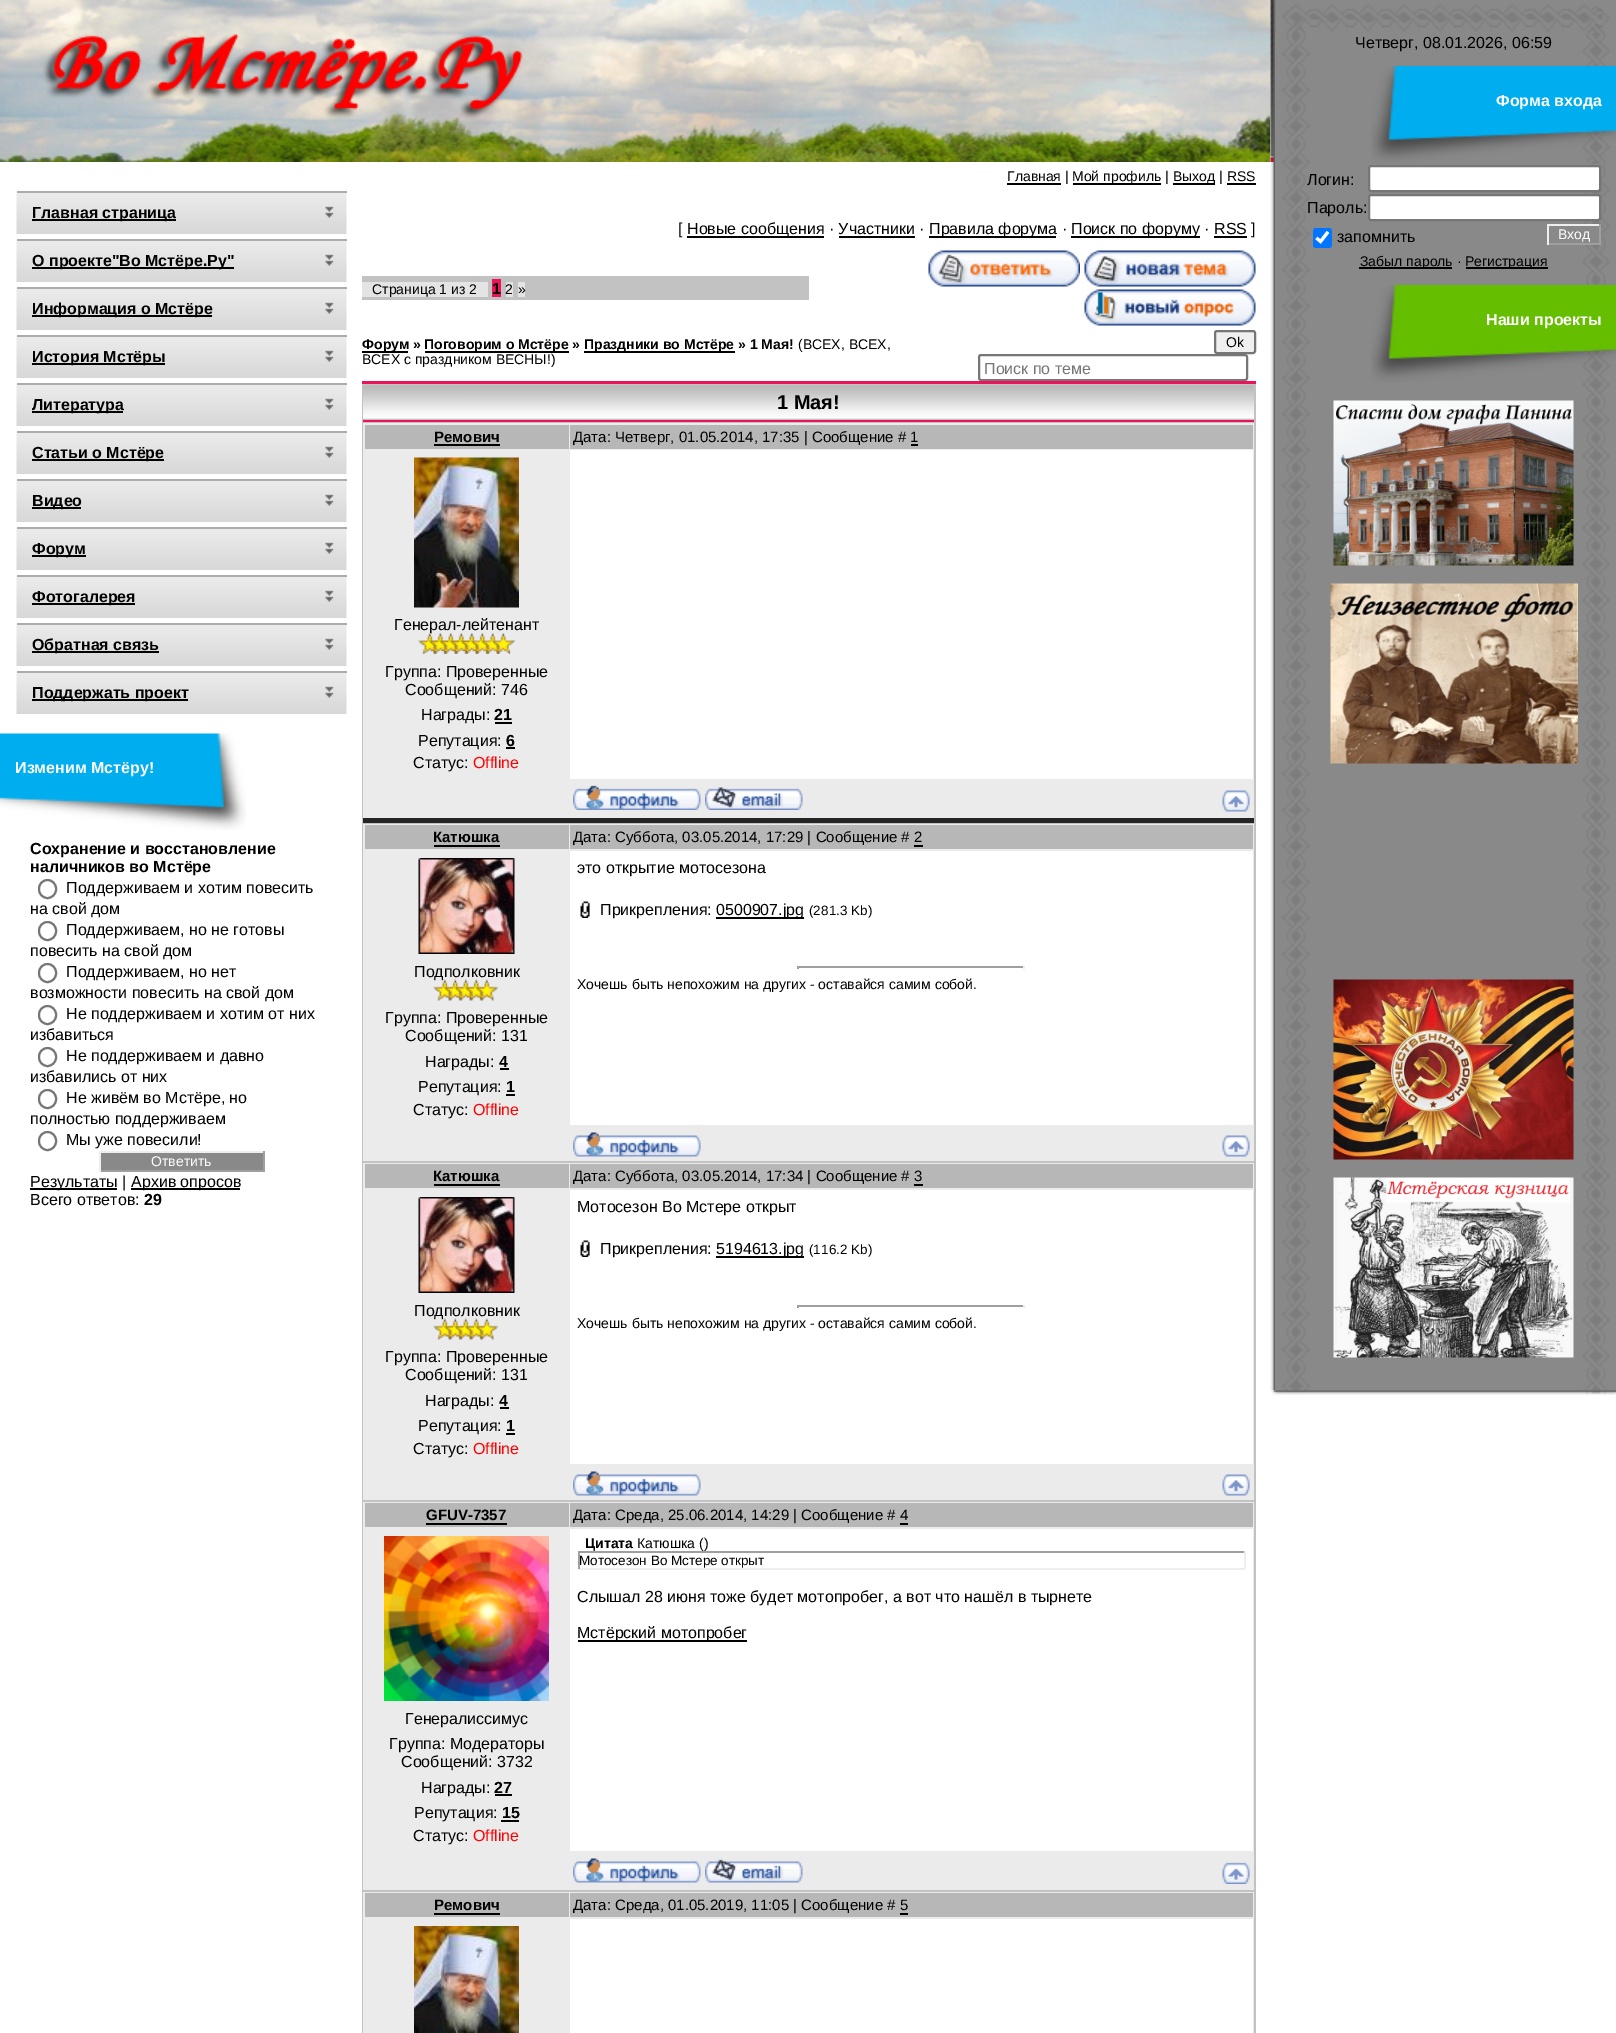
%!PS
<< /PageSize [1616 2033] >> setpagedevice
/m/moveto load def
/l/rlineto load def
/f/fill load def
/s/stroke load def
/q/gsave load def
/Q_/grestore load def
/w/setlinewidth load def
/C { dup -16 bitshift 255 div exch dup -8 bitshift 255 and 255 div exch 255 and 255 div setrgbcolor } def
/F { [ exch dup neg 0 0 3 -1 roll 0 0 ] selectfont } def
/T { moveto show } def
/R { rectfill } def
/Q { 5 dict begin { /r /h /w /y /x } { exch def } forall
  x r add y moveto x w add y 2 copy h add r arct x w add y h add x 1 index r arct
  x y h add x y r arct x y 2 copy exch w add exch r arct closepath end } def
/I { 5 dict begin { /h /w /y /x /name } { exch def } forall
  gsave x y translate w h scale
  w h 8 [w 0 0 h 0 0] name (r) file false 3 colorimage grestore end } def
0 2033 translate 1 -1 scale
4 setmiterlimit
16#FFFFFF C
0 0 1616 2033 R
(1.rgb) 0 0 1271 162 I
16#000000 C
1007 183 54 2 R
/LiberationSans-Regular 14 F
(Главная |) 1007 181 T
1073 183 88 2 R
(Мой профиль |) 1072 181 T
1173 183 42 2 R
(Выход | RSS) 1173 181 T
1227 183 29 2 R
(2.rgb) 16 192 331 42 I
16#ACACAC C
17 191 330 2 R
16#000000 C
32 219 144 2 R
/LiberationSans-Bold 16 F
(Главная страница) 32 218 T
(2.rgb) 16 240 331 42 I
16#ACACAC C
17 239 330 2 R
16#000000 C
32 267 202 2 R
(О проекте"Во Мстёре.Ру") 32 266 T
(2.rgb) 16 288 331 42 I
16#ACACAC C
17 287 330 2 R
16#000000 C
32 315 180 2 R
(Информация о Мстёре) 32 314 T
(2.rgb) 16 336 331 42 I
16#ACACAC C
17 335 330 2 R
16#000000 C
32 363 133 2 R
(История Мстёры) 32 362 T
(2.rgb) 16 384 331 42 I
16#ACACAC C
17 383 330 2 R
16#000000 C
32 411 91 2 R
(Литература) 32 410 T
(2.rgb) 16 432 331 42 I
16#ACACAC C
17 431 330 2 R
16#000000 C
32 459 132 2 R
(Статьи о Мстёре) 32 458 T
(2.rgb) 16 480 331 42 I
16#ACACAC C
17 479 330 2 R
16#000000 C
32 507 49 2 R
(Видео) 32 506 T
(2.rgb) 16 528 331 42 I
16#ACACAC C
17 527 330 2 R
16#000000 C
32 555 54 2 R
(Форум) 32 554 T
(2.rgb) 16 576 331 42 I
16#ACACAC C
17 575 330 2 R
16#000000 C
32 603 103 2 R
(Фотогалерея) 32 602 T
(2.rgb) 16 624 331 42 I
16#ACACAC C
17 623 330 2 R
16#000000 C
32 651 127 2 R
(Обратная связь) 32 650 T
(2.rgb) 16 672 331 42 I
16#ACACAC C
17 671 330 2 R
16#000000 C
32 699 156 2 R
(Поддержать проект) 32 698 T
(3.rgb) 0 733 246 97 I
16#FFFFFF C
(Изменим Мстёру!) 15 773 T
16#000000 C
(Сохранение и восстановление) 30 854 T
(наличников во Мстёре) 30 872 T
16#767676 C
2 w
39 880 17 18 8.5 Q s
/LiberationSans-Regular 16 F
16#000000 C
(Поддерживаем и хотим повесить) 66 893 T
(на свой дом) 30 914 T
16#767676 C
39 922 17 18 8.5 Q s
16#000000 C
(Поддерживаем, но не готовы) 66 935 T
(повесить на свой дом) 30 956 T
16#767676 C
39 964 17 18 8.5 Q s
16#000000 C
(Поддерживаем, но нет) 66 977 T
(возможности повесить на свой дом) 30 998 T
16#767676 C
39 1006 17 18 8.5 Q s
16#000000 C
(Не поддерживаем и хотим от них) 66 1019 T
(избавиться) 30 1040 T
16#767676 C
39 1048 17 18 8.5 Q s
16#000000 C
(Не поддерживаем и давно) 66 1061 T
(избавились от них) 30 1082 T
16#767676 C
39 1090 17 18 8.5 Q s
16#000000 C
(Не живём во Мстёре, но) 66 1103 T
(полностью поддерживаем) 30 1124 T
16#767676 C
39 1132 17 18 8.5 Q s
16#000000 C
(Мы уже повесили!) 66 1145 T
16#898989 C
101 1153 162 17 R
16#EEEEEE C
99 1151 165 2 R
16#9F9F9F C
263 1151 2 21 R
99 1170 165 2 R
16#EEEEEE C
99 1151 2 21 R
/LiberationSans-Regular 14 F
16#FFFFFF C
(Ответить) 151 1166 T
16#000000 C
30 1188 87 2 R
/LiberationSans-Regular 16 F
(Результаты |) 30 1187 T
131 1188 109 2 R
(Архив опросов) 131 1187 T
(Всего ответов:) 30 1205 T
/LiberationSans-Bold 16 F
(29) 144 1205 T
/LiberationSans-Regular 16 F
([) 678 234 T
687 236 137 2 R
(Новые сообщения · Участники ·) 687 234 T
929 236 127 2 R
(Правила форума ·) 929 234 T
1071 236 129 2 R
(Поиск по форуму · RSS ]) 1071 234 T
839 236 76 2 R
1214 236 33 2 R
16#C2C2C2 C
362 276 447 24 R
16#E4E4E4 C
362 282 126 15 R
/LiberationSans-Regular 14 F
16#000000 C
(Страница 1 из 2) 372 294 T
16#ED135A C
492 279 9 18 R
/LiberationSans-Bold 16 F
16#000000 C
(1) 492 294 T
16#E4E4E4 C
506 282 7 15 R
/LiberationSans-Regular 14 F
16#000000 C
(2) 505 294 T
16#E4E4E4 C
518 282 7 15 R
16#000000 C
(») 518 294 T
(4.rgb) 928 250 152 37 I
(5.rgb) 1084 250 172 37 I
(6.rgb) 1084 289 172 37 I
362 351 46 2 R
/LiberationSans-Bold 14 F
(Форум ») 362 349 T
425 351 144 2 R
(Поговорим о Мстёре ») 424 349 T
584 351 151 2 R
(Праздники во Мстёре » 1 Мая!) 584 349 T
/LiberationSans-Regular 14 F
(\(ВСЕХ, ВСЕХ,) 798 349 T
(ВСЕХ с праздником ВЕСНЫ!\)) 362 364 T
16#EFEFEF C
1215 331 40 22 2 Q q f Q_
16#767676 C
s
16#000000 C
(Ok) 1226 347 T
16#767676 C
979 355 268 25 2 Q s
/LiberationSans-Regular 16 F
16#757575 C
(Поиск по теме) 984 374 T
16#C2C2C2 C
362 384 894 1649 R
16#ED135A C
362 381 894 3 R
16#D2D2D2 C
363 418 891 1 R
(7.rgb) 363 385 891 34 I
/LiberationSans-Bold 20 F
16#000000 C
(1 Мая!) 777 409 T
16#ED135A C
363 420 891 2 R
16#EBEBEB C
363 423 891 395 R
16#252525 C
363 818 891 5 R
16#B7B7B7 C
365 425 204 24 R
/LiberationSans-Bold 15 F
16#000000 C
(Ремович) 434 442 T
434 444 66 2 R
16#B7B7B7 C
570 425 683 24 R
/LiberationSans-Regular 15 F
16#000000 C
(Дата: Четверг, 01.05.2014, 17:35 | Сообщение # 1) 573 442 T
911 444 7 2 R
(8.rgb) 414 457 105 151 I
/LiberationSans-Regular 16 F
(Генерал-лейтенант) 394 630 T
(9.rgb) 418 633 97 21 I
(Группа: Проверенные) 385 677 T
(Сообщений: 746) 405 695 T
(Награды:) 421 720 T
/LiberationSans-Bold 16 F
(21) 494 720 T
495 722 17 2 R
/LiberationSans-Regular 16 F
(Репутация:) 418 746 T
/LiberationSans-Bold 16 F
(6) 506 746 T
506 747 9 2 R
/LiberationSans-Regular 16 F
(Статус:) 413 768 T
16#FF0000 C
(Offline) 473 768 T
16#FFFFFF C
570 450 683 329 R
(10.rgb) 573 785 128 25 I
(11.rgb) 705 787 98 23 I
(12.rgb) 1222 790 28 22 I
16#EBEBEB C
363 824 891 337 R
16#B7B7B7 C
365 825 204 24 R
/LiberationSans-Bold 15 F
16#000000 C
(Катюшка) 433 842 T
434 845 66 2 R
16#B7B7B7 C
570 825 683 24 R
/LiberationSans-Regular 15 F
16#000000 C
(Дата: Суббота, 03.05.2014, 17:29 | Сообщение # 2) 573 842 T
914 845 9 2 R
16#FFFFFF C
570 851 683 274 R
/LiberationSans-Regular 16 F
16#000000 C
(это открытие мотосезона) 577 873 T
(13.rgb) 580 901 10 17 I
(Прикрепления:) 600 915 T
716 917 88 2 R
(0500907.jpg) 716 915 T
/LiberationSans-Regular 13.5 F
(\(281.3 Kb\)) 809 915 T
16#9F9F9F C
797 966 228 2 R
16#EEEEEE C
1023 966 2 3 R
16#9F9F9F C
797 966 2 3 R
/LiberationSans-Regular 14 F
16#000000 C
(Хочешь быть непохожим нa других - оставайся самим собой.) 577 989 T
(14.rgb) 418 858 97 96 I
/LiberationSans-Regular 16 F
(Подполковник) 414 977 T
(15.rgb) 433 979 66 22 I
(Группа: Проверенные) 385 1023 T
(Сообщений: 131) 405 1041 T
(Награды:) 425 1067 T
/LiberationSans-Bold 16 F
(4) 499 1067 T
500 1068 9 2 R
/LiberationSans-Regular 16 F
(Репутация:) 418 1092 T
/LiberationSans-Bold 16 F
(1) 506 1092 T
506 1094 9 2 R
/LiberationSans-Regular 16 F
(Статус:) 413 1115 T
16#FF0000 C
(Offline) 473 1115 T
(16.rgb) 573 1132 128 25 I
(12.rgb) 1222 1135 28 22 I
16#EBEBEB C
363 1163 891 337 R
16#B7B7B7 C
365 1164 204 24 R
/LiberationSans-Bold 15 F
16#000000 C
(Катюшка) 433 1181 T
434 1184 66 2 R
16#B7B7B7 C
570 1164 683 24 R
/LiberationSans-Regular 15 F
16#000000 C
(Дата: Суббота, 03.05.2014, 17:34 | Сообщение # 3) 573 1181 T
914 1184 9 2 R
16#FFFFFF C
570 1190 683 274 R
/LiberationSans-Regular 16 F
16#000000 C
(Мотосезон Во Мстере открыт) 577 1212 T
(13.rgb) 580 1240 10 17 I
(Прикрепления:) 600 1254 T
716 1256 88 2 R
(5194613.jpg) 716 1254 T
/LiberationSans-Regular 13.5 F
(\(116.2 Kb\)) 809 1254 T
16#9F9F9F C
797 1305 228 2 R
16#EEEEEE C
1023 1305 2 3 R
16#9F9F9F C
797 1305 2 3 R
/LiberationSans-Regular 14 F
16#000000 C
(Хочешь быть непохожим нa других - оставайся самим собой.) 577 1328 T
(14.rgb) 418 1197 97 96 I
/LiberationSans-Regular 16 F
(Подполковник) 414 1316 T
(15.rgb) 433 1318 66 22 I
(Группа: Проверенные) 385 1362 T
(Сообщений: 131) 405 1380 T
(Награды:) 425 1406 T
/LiberationSans-Bold 16 F
(4) 499 1406 T
500 1407 9 2 R
/LiberationSans-Regular 16 F
(Репутация:) 418 1431 T
/LiberationSans-Bold 16 F
(1) 506 1431 T
506 1433 9 2 R
/LiberationSans-Regular 16 F
(Статус:) 413 1454 T
16#FF0000 C
(Offline) 473 1454 T
(16.rgb) 573 1471 128 25 I
(12.rgb) 1222 1474 28 22 I
16#EBEBEB C
363 1502 891 388 R
16#B7B7B7 C
365 1503 204 24 R
/LiberationSans-Bold 15 F
16#000000 C
(GFUV-7357) 426 1520 T
426 1523 81 2 R
16#B7B7B7 C
570 1503 683 24 R
/LiberationSans-Regular 15 F
16#000000 C
(Дата: Среда, 25.06.2014, 14:29 | Сообщение # 4) 573 1520 T
900 1523 8 2 R
16#FFFFFF C
570 1529 683 322 R
/LiberationSans-Bold 14 F
16#000000 C
(Цитата) 585 1548 T
/LiberationSans-Regular 14 F
(Катюшка \(\)) 637 1548 T
16#9F9F9F C
578 1551 667 2 R
16#EEEEEE C
1244 1551 2 18 R
578 1568 667 2 R
16#9F9F9F C
578 1551 2 18 R
/LiberationSans-Regular 13.5 F
16#000000 C
(Мотосезон Во Мстере открыт) 579 1565 T
/LiberationSans-Regular 16 F
(Слышал 28 июня тоже будет мотопробег, а вот что нашёл в тырнете) 577 1602 T
578 1640 169 2 R
(Мстёрский мотопробег) 577 1638 T
(17.rgb) 384 1536 165 165 I
(Генералиссимус) 405 1724 T
(Группа: Модераторы) 389 1749 T
(Сообщений: 3732) 401 1767 T
(Награды:) 421 1793 T
/LiberationSans-Bold 16 F
(27) 494 1793 T
495 1794 17 2 R
/LiberationSans-Regular 16 F
(Репутация:) 414 1818 T
/LiberationSans-Bold 16 F
(15) 502 1818 T
501 1820 18 2 R
/LiberationSans-Regular 16 F
(Статус:) 413 1841 T
16#FF0000 C
(Offline) 473 1841 T
(16.rgb) 573 1858 128 25 I
(18.rgb) 705 1859 98 24 I
(19.rgb) 1222 1862 28 22 I
16#EBEBEB C
363 1892 891 141 R
16#B7B7B7 C
365 1893 204 24 R
/LiberationSans-Bold 15 F
16#000000 C
(Ремович) 434 1910 T
434 1913 66 2 R
16#B7B7B7 C
570 1893 683 24 R
/LiberationSans-Regular 15 F
16#000000 C
(Дата: Среда, 01.05.2019, 11:05 | Сообщение # 5) 573 1910 T
900 1913 8 2 R
(20.rgb) 414 1926 105 107 I
16#FFFFFF C
570 1919 683 114 R
(21.rgb) 1270 0 346 33 I
(22.rgb) 1270 33 5 1358 I
(23.rgb) 1270 33 4 129 I
16#898989 C
1275 33 341 1358 R
(24.rgb) 1282 33 28 1358 I
(25.rgb) 1582 33 28 33 I
/LiberationSans-Regular 16 F
16#000000 C
(Четверг, 08.01.2026, 06:59) 1355 48 T
(26.rgb) 1371 66 245 98 I
/LiberationSans-Bold 16 F
16#FFFFFF C
(Форма входа) 1496 106 T
(27.rgb) 1582 164 28 121 I
/LiberationSans-Regular 16 F
16#000000 C
(Логин:) 1307 185 T
16#FFFFFF C
1369 166 231 25 2 Q q f Q_
16#767676 C
s
16#000000 C
(Пароль:) 1307 213 T
16#FFFFFF C
1369 195 231 25 2 Q q f Q_
16#767676 C
s
16#0075FF C
1313 228 19 20 3 Q f
16#FFFFFF C
3.1 w
1316.5 238 m 4 3.5 l 7.5 -9.5 l s
16#000000 C
(запомнить) 1337 242 T
16#898989 C
1582 226 17 17 R
16#EEEEEE C
1547 224 54 2 R
16#9F9F9F C
1599 224 2 21 R
1547 243 54 2 R
16#EEEEEE C
1547 224 2 21 R
/LiberationSans-Regular 14 F
16#FFFFFF C
(Вход) 1558 239 T
16#000000 C
1359 267 93 2 R
(Забыл пароль ·) 1360 266 T
1466 267 82 2 R
(Регистрация) 1465 266 T
(28.rgb) 1371 285 245 98 I
/LiberationSans-Bold 16 F
16#FFFFFF C
(Наши проекты) 1486 325 T
(29.rgb) 1582 382 28 1009 I
(30.rgb) 1333 400 241 166 I
(31.rgb) 1330 583 248 181 I
(32.rgb) 1333 979 241 181 I
(33.rgb) 1333 1177 241 181 I
(34.rgb) 1271 1390 345 5 I
showpage
